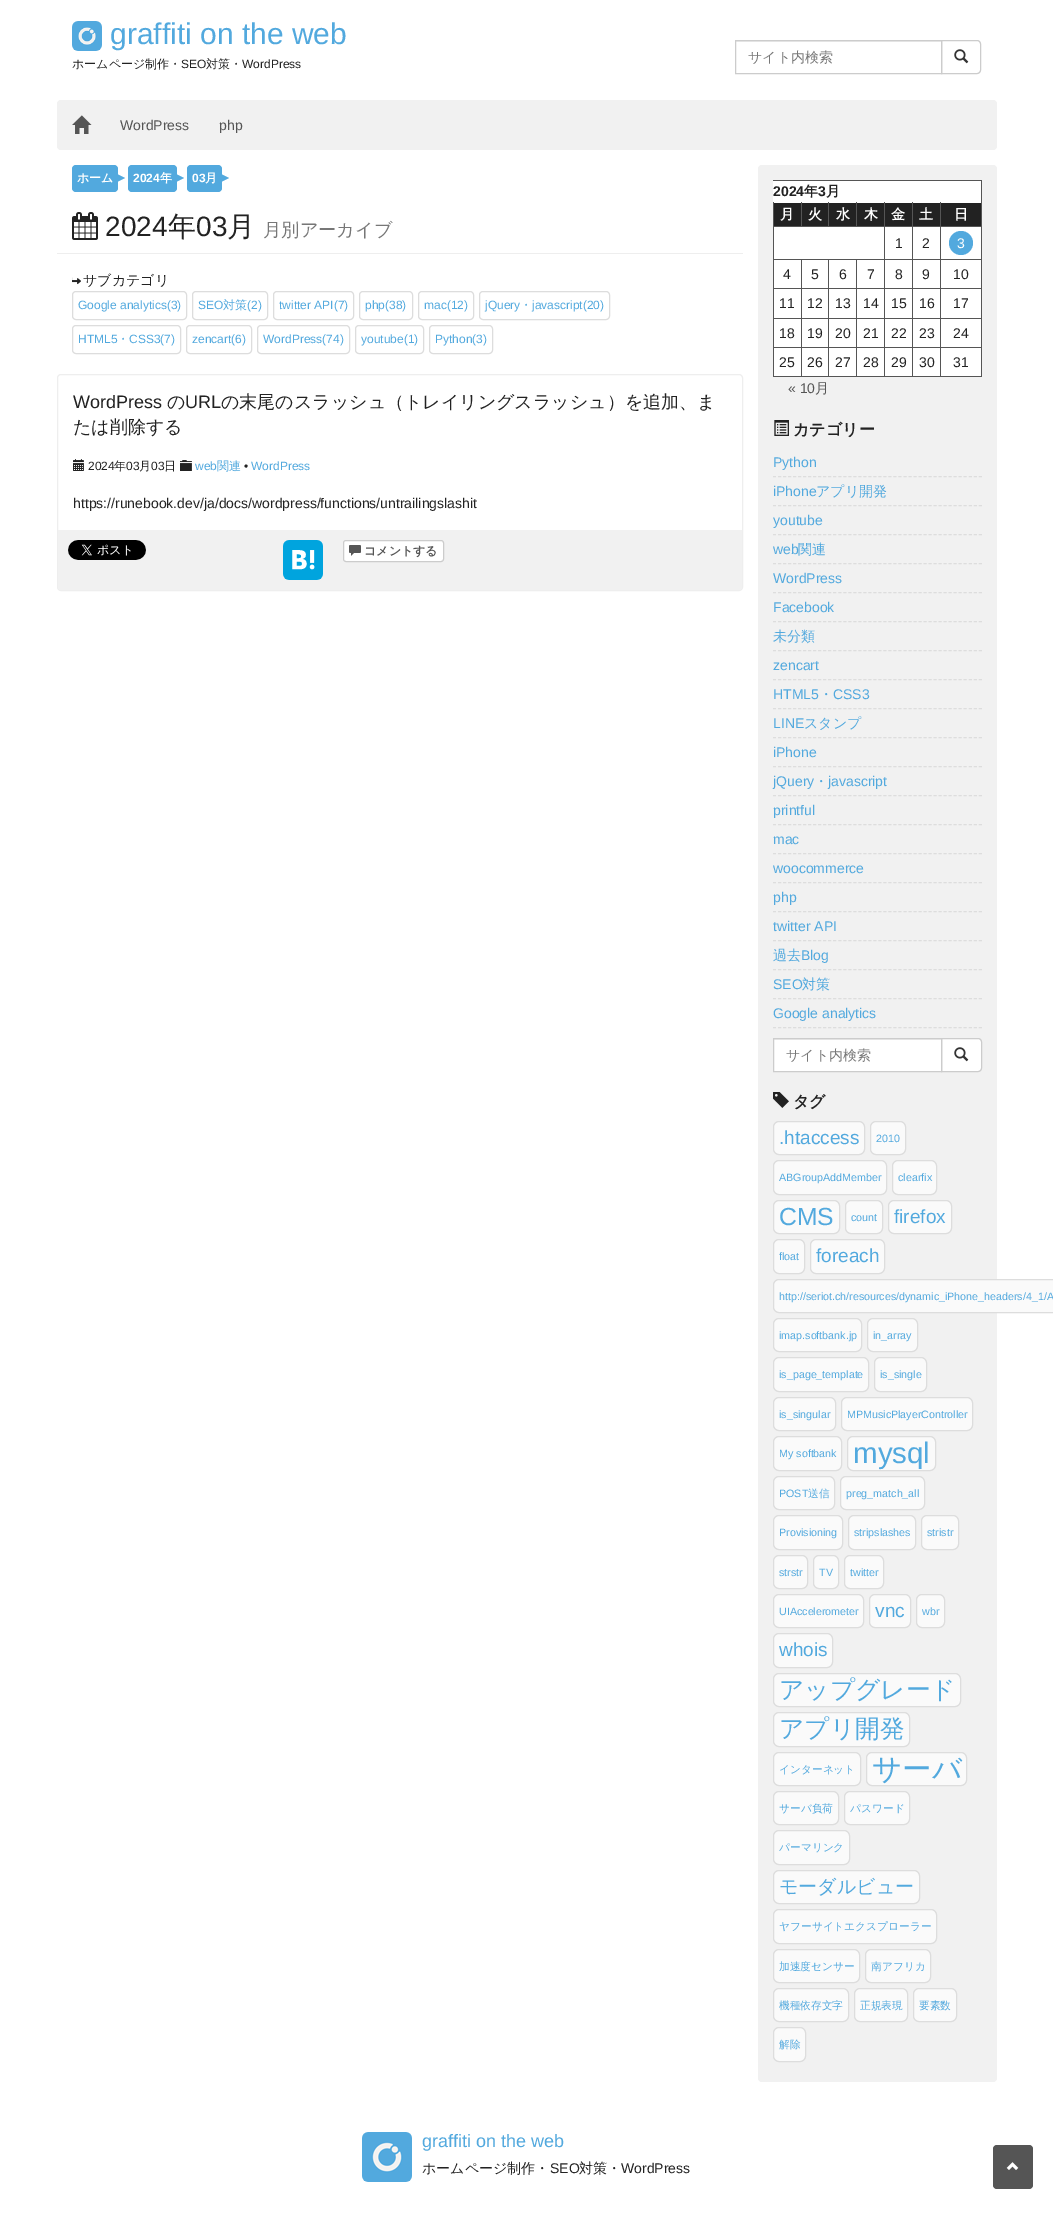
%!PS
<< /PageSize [1053 2214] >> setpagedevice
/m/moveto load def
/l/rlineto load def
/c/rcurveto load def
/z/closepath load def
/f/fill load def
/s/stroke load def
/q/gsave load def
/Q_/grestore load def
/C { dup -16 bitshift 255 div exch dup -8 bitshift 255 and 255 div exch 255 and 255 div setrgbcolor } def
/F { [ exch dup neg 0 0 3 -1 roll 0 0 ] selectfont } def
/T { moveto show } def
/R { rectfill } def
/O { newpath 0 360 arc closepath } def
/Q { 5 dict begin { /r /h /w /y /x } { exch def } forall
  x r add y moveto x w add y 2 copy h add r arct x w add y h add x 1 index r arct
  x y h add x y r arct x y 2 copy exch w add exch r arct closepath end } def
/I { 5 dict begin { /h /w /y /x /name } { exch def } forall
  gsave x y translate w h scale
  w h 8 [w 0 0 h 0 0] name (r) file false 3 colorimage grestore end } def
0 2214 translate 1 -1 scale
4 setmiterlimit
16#FFFFFF C
0 0 1053 2214 R
(1.rgb) 72 21 30 30 I
/LiberationSans-Regular 30 F
16#52A9DE C
(graffiti on the web) 110 44 T
/WenQuanYiZenHei-Medium 12 F
16#222222 C
(ホームページ制作・) 72 68 T
/LiberationSans-Regular 12 F
(SEO) 181 68 T
/WenQuanYiZenHei-Medium 12 F
(対策・) 206 68 T
/LiberationSans-Regular 12 F
(WordPress) 242 68 T
16#ECECEC C
736 41 205 1 R
16#CCCCCC C
941.5 40.5 m 35.5 0 l 2 0 3.5 1.5 3.5 3.5 c 0 26 l 0 2 -1.5 3.5 -3.5 3.5 c -35.5 0 l z s
735.5 40.5 206 33 rectstroke
/WenQuanYiZenHei-Medium 14 F
16#777777 C
(サイト内検索) 748 62 T
(2.rgb) 954 49 15 15 I
16#F1F1F1 C
57 100 940 50 4 Q f
(3.rgb) 72 115 20 19 I
/LiberationSans-Regular 14 F
16#555555 C
(WordPress) 120 130 T
(php) 219 130 T
16#52A9DE C
72 165 46 27 4 Q f
/WenQuanYiZenHei-Bold 12 F
16#FFFFFF C
(ホーム) 77 182 T
16#52A9DE C
115 183 m 0 -10 l 10 5 l z f
128 165 49 27 4 Q f
/LiberationSans-Bold 12 F
16#FFFFFF C
(2024) 133 182 T
/WenQuanYiZenHei-Bold 12 F
(年) 160 182 T
16#52A9DE C
174 183 m 0 -10 l 10 5 l z f
187 165 35 27 4 Q f
/LiberationSans-Bold 12 F
16#FFFFFF C
(03) 192 182 T
/WenQuanYiZenHei-Bold 12 F
(月) 205 182 T
16#52A9DE C
219 183 m 0 -10 l 10 5 l z f
16#EEEEEE C
57 253 686 1 R
(4.rgb) 72 212 26 28 I
/LiberationSans-Regular 28 F
16#222222 C
(2024) 105 236 T
/WenQuanYiZenHei-Medium 28 F
(年) 168 236 T
/LiberationSans-Regular 28 F
(03) 196 236 T
/WenQuanYiZenHei-Medium 28 F
(月) 227 236 T
/WenQuanYiZenHei-Medium 18.25 F
16#777777 C
(月別アーカイブ) 263 236 T
(5.rgb) 72 277 9 8 I
/WenQuanYiZenHei-Medium 14 F
16#222222 C
(サブカテゴリ) 83 285 T
16#DDDDDD C
72.5 291.5 114 28 3.5 Q s
/LiberationSans-Regular 12 F
16#52A9DE C
(Google analytics\(3\)) 78 309 T
16#DDDDDD C
192.5 291.5 75 28 3.5 Q s
16#52A9DE C
(SEO) 198 309 T
/WenQuanYiZenHei-Medium 12 F
(対策) 223 309 T
/LiberationSans-Regular 12 F
(\(2\)) 247 309 T
16#DDDDDD C
273.5 291.5 80 28 3.5 Q s
16#52A9DE C
(twitter API\(7\)) 279 309 T
16#DDDDDD C
359.5 291.5 53 28 3.5 Q s
16#52A9DE C
(php\(38\)) 365 309 T
16#DDDDDD C
418.5 291.5 55 28 3.5 Q s
16#52A9DE C
(mac\(12\)) 424 309 T
16#DDDDDD C
479.5 291.5 130 28 3.5 Q s
16#52A9DE C
(jQuery) 485 309 T
/WenQuanYiZenHei-Medium 12 F
(・) 520 309 T
/LiberationSans-Regular 12 F
(javascript\(20\)) 532 309 T
16#DDDDDD C
72.5 325.5 108 28 3.5 Q s
16#52A9DE C
(HTML5) 78 343 T
/WenQuanYiZenHei-Medium 12 F
(・) 117 343 T
/LiberationSans-Regular 12 F
(CSS3\(7\)) 129 343 T
16#DDDDDD C
186.5 325.5 65 28 3.5 Q s
16#52A9DE C
(zencart\(6\)) 192 343 T
16#DDDDDD C
257.5 325.5 92 28 3.5 Q s
16#52A9DE C
(WordPress\(74\)) 263 343 T
16#DDDDDD C
355.5 325.5 68 28 3.5 Q s
16#52A9DE C
(youtube\(1\)) 361 343 T
16#DDDDDD C
429.5 325.5 63 28 3.5 Q s
16#52A9DE C
(Python\(3\)) 435 343 T
16#EEEEEE C
57.5 374.5 685 216 3.5 Q s
/LiberationSans-Regular 18 F
16#222222 C
(WordPress) 73 408 T
/WenQuanYiZenHei-Medium 18 F
(の) 167 408 T
/LiberationSans-Regular 18 F
(URL) 185 408 T
/WenQuanYiZenHei-Medium 18 F
(の末尾のスラッシュ（トレイリングスラッシュ）を追加、ま) 221 408 T
(たは削除する) 73 433 T
(6.rgb) 73 459 11 12 I
/LiberationSans-Regular 12 F
(2024) 88 470 T
/WenQuanYiZenHei-Medium 12 F
(年) 114 470 T
/LiberationSans-Regular 12 F
(03) 126 470 T
/WenQuanYiZenHei-Medium 12 F
(月) 139 470 T
/LiberationSans-Regular 12 F
(03) 151 470 T
/WenQuanYiZenHei-Medium 12 F
(日) 164 470 T
(7.rgb) 180 460 12 11 I
/LiberationSans-Regular 12 F
16#52A9DE C
(web) 195 470 T
/WenQuanYiZenHei-Medium 12 F
(関連) 217 470 T
/LiberationSans-Regular 12 F
16#222222 C
(•) 244 470 T
16#52A9DE C
(WordPress) 251 470 T
/LiberationSans-Regular 14 F
16#222222 C
(https://runebook.dev/ja/docs/wordpress/functions/untrailingslashit) 73 508 T
16#F1F1F1 C
58 530 m 684 0 l 0 57 l 0 1.5 -1.5 3 -3 3 c -678 0 l -1.5 0 -3 -1.5 -3 -3 c z f
(8.rgb) 68 540 78 20 I
(9.rgb) 283 540 40 40 I
16#FFFFFF C
343.5 540.5 100 21 2.5 Q q f Q_
16#CCCCCC C
s
(10.rgb) 349 545 12 11 I
/WenQuanYiZenHei-Bold 12 F
16#555555 C
(コメントする) 364 555 T
16#F1F1F1 C
758 165 239 1917 4 Q f
16#FFFFFF C
773 181 208 195 R
16#555555 C
773 180 209 1 R
981 180 1 197 R
/LiberationSans-Bold 14 F
16#222222 C
(2024) 773 196 T
/WenQuanYiZenHei-Bold 14 F
(年) 804 196 T
/LiberationSans-Bold 14 F
(3) 818 196 T
/WenQuanYiZenHei-Bold 14 F
(月) 826 196 T
774 203 27 23 R
16#555555 C
940 376 42 1 R
940 347 1 30 R
940 347 42 1 R
940 318 1 30 R
940 318 42 1 R
940 288 1 31 R
940 288 42 1 R
940 259 1 30 R
940 259 42 1 R
940 226 1 34 R
940 226 42 1 R
940 202 1 25 R
912 376 29 1 R
912 347 1 30 R
912 347 29 1 R
912 318 1 30 R
912 318 29 1 R
912 288 1 31 R
912 288 29 1 R
912 259 1 30 R
912 259 29 1 R
912 226 1 34 R
912 226 29 1 R
912 202 1 25 R
884 376 29 1 R
884 347 1 30 R
884 347 29 1 R
884 318 1 30 R
884 318 29 1 R
884 288 1 31 R
884 288 29 1 R
884 259 1 30 R
884 259 29 1 R
884 226 1 34 R
884 226 29 1 R
884 202 1 25 R
856 226 29 1 R
856 202 1 25 R
828 226 29 1 R
828 202 1 25 R
801 226 28 1 R
801 202 1 25 R
856 376 29 1 R
856 347 1 30 R
856 347 29 1 R
856 318 1 30 R
856 318 29 1 R
856 288 1 31 R
856 288 29 1 R
856 259 1 30 R
828 376 29 1 R
828 347 1 30 R
828 347 29 1 R
828 318 1 30 R
828 318 29 1 R
828 288 1 31 R
828 288 29 1 R
828 259 1 30 R
801 376 28 1 R
801 347 1 30 R
801 347 28 1 R
801 318 1 30 R
801 318 28 1 R
801 288 1 31 R
801 288 28 1 R
801 259 1 30 R
773 376 29 1 R
773 347 1 30 R
773 347 29 1 R
773 318 1 30 R
773 318 29 1 R
773 288 1 31 R
773 288 29 1 R
773 259 1 30 R
773 259 112 1 R
773 226 1 34 R
773 226 29 1 R
773 202 1 25 R
16#FFFFFF C
(月) 780 219 T
16#222222 C
802 203 26 23 R
16#FFFFFF C
(火) 808 219 T
16#222222 C
829 203 27 23 R
16#FFFFFF C
(水) 836 219 T
16#222222 C
857 203 27 23 R
16#FFFFFF C
(木) 864 219 T
16#222222 C
885 203 27 23 R
16#FFFFFF C
(金) 891 219 T
16#222222 C
913 203 27 23 R
16#FFFFFF C
(土) 919 219 T
16#222222 C
941 203 40 23 R
16#FFFFFF C
(日) 954 219 T
/LiberationSans-Regular 14 F
16#222222 C
(1) 895 248 T
(2) 922 248 T
16#52A9DE C
961 243 12 O f
16#FFFFFF C
(3) 957 248 T
16#222222 C
(4) 783 279 T
(5) 811 279 T
(6) 839 279 T
(7) 867 279 T
(8) 895 279 T
(9) 922 279 T
(10) 953 279 T
(11) 779 308 T
(12) 807 308 T
(13) 835 308 T
(14) 863 308 T
(15) 891 308 T
(16) 919 308 T
(17) 953 308 T
(18) 779 338 T
(19) 807 338 T
(20) 835 338 T
(21) 863 338 T
(22) 891 338 T
(23) 919 338 T
(24) 953 338 T
(25) 779 367 T
(26) 807 367 T
(27) 835 367 T
(28) 863 367 T
(29) 891 367 T
(30) 919 367 T
(31) 953 367 T
16#555555 C
(« 10) 788 393 T
/WenQuanYiZenHei-Medium 14 F
(月) 815 393 T
(11.rgb) 774 420 15 16 I
/WenQuanYiZenHei-Bold 16 F
16#222222 C
(カテゴリー) 793 435 T
16#DDDDDD C
[3 2.02] 0 setdash
773 476.5 m 209 0 l s
/LiberationSans-Regular 14 F
16#52A9DE C
(Python) 773 467 T
16#DDDDDD C
773 505.5 m 209 0 l s
16#52A9DE C
(iPhone) 773 496 T
/WenQuanYiZenHei-Medium 14 F
(アプリ開発) 816 496 T
16#DDDDDD C
773 534.5 m 209 0 l s
/LiberationSans-Regular 14 F
16#52A9DE C
(youtube) 773 525 T
16#DDDDDD C
773 563.5 m 209 0 l s
16#52A9DE C
(web) 773 554 T
/WenQuanYiZenHei-Medium 14 F
(関連) 798 554 T
16#DDDDDD C
773 592.5 m 209 0 l s
/LiberationSans-Regular 14 F
16#52A9DE C
(WordPress) 773 583 T
16#DDDDDD C
773 621.5 m 209 0 l s
16#52A9DE C
(Facebook) 773 612 T
16#DDDDDD C
773 650.5 m 209 0 l s
/WenQuanYiZenHei-Medium 14 F
16#52A9DE C
(未分類) 773 641 T
16#DDDDDD C
773 679.5 m 209 0 l s
/LiberationSans-Regular 14 F
16#52A9DE C
(zencart) 773 670 T
16#DDDDDD C
773 708.5 m 209 0 l s
16#52A9DE C
(HTML5) 773 699 T
/WenQuanYiZenHei-Medium 14 F
(・) 819 699 T
/LiberationSans-Regular 14 F
(CSS3) 833 699 T
16#DDDDDD C
773 737.5 m 209 0 l s
16#52A9DE C
(LINE) 773 728 T
/WenQuanYiZenHei-Medium 14 F
(スタンプ) 804 728 T
16#DDDDDD C
773 766.5 m 209 0 l s
/LiberationSans-Regular 14 F
16#52A9DE C
(iPhone) 773 757 T
16#DDDDDD C
773 795.5 m 209 0 l s
16#52A9DE C
(jQuery) 773 786 T
/WenQuanYiZenHei-Medium 14 F
(・) 814 786 T
/LiberationSans-Regular 14 F
(javascript) 828 786 T
16#DDDDDD C
773 824.5 m 209 0 l s
16#52A9DE C
(printful) 773 815 T
16#DDDDDD C
773 853.5 m 209 0 l s
16#52A9DE C
(mac) 773 844 T
16#DDDDDD C
773 882.5 m 209 0 l s
16#52A9DE C
(woocommerce) 773 873 T
16#DDDDDD C
773 911.5 m 209 0 l s
16#52A9DE C
(php) 773 902 T
16#DDDDDD C
773 940.5 m 209 0 l s
16#52A9DE C
(twitter API) 773 931 T
16#DDDDDD C
773 969.5 m 209 0 l s
/WenQuanYiZenHei-Medium 14 F
16#52A9DE C
(過去) 773 960 T
/LiberationSans-Regular 14 F
(Blog) 801 960 T
16#DDDDDD C
773 998.5 m 209 0 l s
16#52A9DE C
(SEO) 773 989 T
/WenQuanYiZenHei-Medium 14 F
(対策) 802 989 T
16#DDDDDD C
773 1027.5 m 209 0 l s
/LiberationSans-Regular 14 F
16#52A9DE C
(Google analytics) 773 1018 T
16#FFFFFF C
774 1040 167 31 R
16#ECECEC C
774 1039 167 1 R
16#FFFFFF C
941.5 1038.5 m 36.5 0 l 2 0 3.5 1.5 3.5 3.5 c 0 26 l 0 2 -1.5 3.5 -3.5 3.5 c -36.5 0 l z q f Q_
16#CCCCCC C
[] 0 setdash
s
773.5 1038.5 168 33 rectstroke
/WenQuanYiZenHei-Medium 14 F
16#777777 C
(サイト内検索) 786 1060 T
(2.rgb) 954 1047 15 15 I
(12.rgb) 773 1092 16 16 I
/WenQuanYiZenHei-Bold 16 F
16#222222 C
(タグ) 793 1107 T
16#FAFAFA C
773.5 1121.5 91 33 5.5 Q q f Q_
16#DDDDDD C
s
/LiberationSans-Regular 19 F
16#52A9DE C
(.htaccess) 779 1144 T
16#FAFAFA C
870.5 1121.5 35 33 5.5 Q q f Q_
16#DDDDDD C
s
/LiberationSans-Regular 10.7 F
16#52A9DE C
(2010) 876 1142 T
16#FAFAFA C
773.5 1160.5 113 34 5.5 Q q f Q_
16#DDDDDD C
s
16#52A9DE C
(ABGroupAddMember) 779 1181 T
16#FAFAFA C
892.5 1160.5 44 34 5.5 Q q f Q_
16#DDDDDD C
s
16#52A9DE C
(clearfix) 898 1181 T
16#FAFAFA C
773.5 1200.5 66 33 5.5 Q q f Q_
16#DDDDDD C
s
/LiberationSans-Regular 24.75 F
16#52A9DE C
(CMS) 779 1225 T
16#FAFAFA C
845.5 1200.5 37 33 5.5 Q q f Q_
16#DDDDDD C
s
/LiberationSans-Regular 10.7 F
16#52A9DE C
(count) 851 1221 T
16#FAFAFA C
888.5 1200.5 63 33 5.5 Q q f Q_
16#DDDDDD C
s
/LiberationSans-Regular 19 F
16#52A9DE C
(firefox) 894 1223 T
16#FAFAFA C
773.5 1239.5 31 34 5.5 Q q f Q_
16#DDDDDD C
s
/LiberationSans-Regular 10.7 F
16#52A9DE C
(float) 779 1260 T
16#FAFAFA C
810.5 1239.5 74 34 5.5 Q q f Q_
16#DDDDDD C
s
/LiberationSans-Regular 19 F
16#52A9DE C
(foreach) 816 1262 T
16#FAFAFA C
773.5 1279.5 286 33 5.5 Q q f Q_
16#DDDDDD C
s
/LiberationSans-Regular 10.7 F
16#52A9DE C
(http://seriot.ch/resources/dynamic_iPhone_headers/4_1/A) 779 1300 T
16#FAFAFA C
773.5 1318.5 88 33 5.5 Q q f Q_
16#DDDDDD C
s
16#52A9DE C
(imap.softbank.jp) 779 1339 T
16#FAFAFA C
867.5 1318.5 50 33 5.5 Q q f Q_
16#DDDDDD C
s
16#52A9DE C
(in_array) 873 1339 T
16#FAFAFA C
773.5 1357.5 95 34 5.5 Q q f Q_
16#DDDDDD C
s
16#52A9DE C
(is_page_template) 779 1378 T
16#FAFAFA C
874.5 1357.5 52 34 5.5 Q q f Q_
16#DDDDDD C
s
16#52A9DE C
(is_single) 880 1378 T
16#FAFAFA C
773.5 1397.5 62 33 5.5 Q q f Q_
16#DDDDDD C
s
16#52A9DE C
(is_singular) 779 1418 T
16#FAFAFA C
841.5 1397.5 131 33 5.5 Q q f Q_
16#DDDDDD C
s
16#52A9DE C
(MPMusicPlayerController) 847 1418 T
16#FAFAFA C
773.5 1436.5 68 34 5.5 Q q f Q_
16#DDDDDD C
s
16#52A9DE C
(My softbank) 779 1457 T
16#FAFAFA C
847.5 1436.5 88 34 5.5 Q q f Q_
16#DDDDDD C
s
/LiberationSans-Regular 29.5 F
16#52A9DE C
(mysql) 853 1463 T
16#FAFAFA C
773.5 1476.5 61 33 5.5 Q q f Q_
16#DDDDDD C
s
/LiberationSans-Regular 10.7 F
16#52A9DE C
(POST) 779 1497 T
/WenQuanYiZenHei-Medium 10.7 F
(送信) 808 1497 T
16#FAFAFA C
840.5 1476.5 84 33 5.5 Q q f Q_
16#DDDDDD C
s
/LiberationSans-Regular 10.7 F
16#52A9DE C
(preg_match_all) 846 1497 T
16#FAFAFA C
773.5 1515.5 69 34 5.5 Q q f Q_
16#DDDDDD C
s
16#52A9DE C
(Provisioning) 779 1536 T
16#FAFAFA C
848.5 1515.5 67 34 5.5 Q q f Q_
16#DDDDDD C
s
16#52A9DE C
(stripslashes) 854 1536 T
16#FAFAFA C
921.5 1515.5 37 34 5.5 Q q f Q_
16#DDDDDD C
s
16#52A9DE C
(stristr) 927 1536 T
16#FAFAFA C
773.5 1555.5 34 33 5.5 Q q f Q_
16#DDDDDD C
s
16#52A9DE C
(strstr) 779 1576 T
16#FAFAFA C
813.5 1555.5 25 33 5.5 Q q f Q_
16#DDDDDD C
s
16#52A9DE C
(TV) 819 1576 T
16#FAFAFA C
844.5 1555.5 39 33 5.5 Q q f Q_
16#DDDDDD C
s
16#52A9DE C
(twitter) 850 1576 T
16#FAFAFA C
773.5 1594.5 90 33 5.5 Q q f Q_
16#DDDDDD C
s
16#52A9DE C
(UIAccelerometer) 779 1615 T
16#FAFAFA C
869.5 1594.5 41 33 5.5 Q q f Q_
16#DDDDDD C
s
/LiberationSans-Regular 19 F
16#52A9DE C
(vnc) 875 1617 T
16#FAFAFA C
916.5 1594.5 28 33 5.5 Q q f Q_
16#DDDDDD C
s
/LiberationSans-Regular 10.7 F
16#52A9DE C
(wbr) 922 1615 T
16#FAFAFA C
773.5 1633.5 59 34 5.5 Q q f Q_
16#DDDDDD C
s
/LiberationSans-Regular 19 F
16#52A9DE C
(whois) 779 1656 T
16#FAFAFA C
773.5 1673.5 187 33 5.5 Q q f Q_
16#DDDDDD C
s
/WenQuanYiZenHei-Medium 24.75 F
16#52A9DE C
(アップグレード) 779 1698 T
16#FAFAFA C
773.5 1712.5 136 34 5.5 Q q f Q_
16#DDDDDD C
s
16#52A9DE C
(アプリ開発) 779 1737 T
16#FAFAFA C
773.5 1752.5 87 33 5.5 Q q f Q_
16#DDDDDD C
s
/WenQuanYiZenHei-Medium 10.7 F
16#52A9DE C
(インターネット) 779 1773 T
16#FAFAFA C
866.5 1752.5 100 33 5.5 Q q f Q_
16#DDDDDD C
s
/WenQuanYiZenHei-Medium 29.5 F
16#52A9DE C
(サーバ) 872 1779 T
16#FAFAFA C
773.5 1791.5 65 33 5.5 Q q f Q_
16#DDDDDD C
s
/WenQuanYiZenHei-Medium 10.7 F
16#52A9DE C
(サーバ負荷) 779 1812 T
16#FAFAFA C
844.5 1791.5 65 33 5.5 Q q f Q_
16#DDDDDD C
s
16#52A9DE C
(パスワード) 850 1812 T
16#FAFAFA C
773.5 1830.5 76 34 5.5 Q q f Q_
16#DDDDDD C
s
16#52A9DE C
(パーマリンク) 779 1851 T
16#FAFAFA C
773.5 1870.5 146 33 5.5 Q q f Q_
16#DDDDDD C
s
/WenQuanYiZenHei-Medium 19 F
16#52A9DE C
(モーダルビュー) 779 1893 T
16#FAFAFA C
773.5 1909.5 163 34 5.5 Q q f Q_
16#DDDDDD C
s
/WenQuanYiZenHei-Medium 10.7 F
16#52A9DE C
(ヤフーサイトエクスプローラー) 779 1930 T
16#FAFAFA C
773.5 1949.5 86 33 5.5 Q q f Q_
16#DDDDDD C
s
16#52A9DE C
(加速度センサー) 779 1970 T
16#FAFAFA C
865.5 1949.5 65 33 5.5 Q q f Q_
16#DDDDDD C
s
16#52A9DE C
(南アフリカ) 871 1970 T
16#FAFAFA C
773.5 1988.5 75 33 5.5 Q q f Q_
16#DDDDDD C
s
16#52A9DE C
(機種依存文字) 779 2009 T
16#FAFAFA C
854.5 1988.5 53 33 5.5 Q q f Q_
16#DDDDDD C
s
16#52A9DE C
(正規表現) 860 2009 T
16#FAFAFA C
913.5 1988.5 43 33 5.5 Q q f Q_
16#DDDDDD C
s
16#52A9DE C
(要素数) 919 2009 T
16#FAFAFA C
773.5 2027.5 32 34 5.5 Q q f Q_
16#DDDDDD C
s
16#52A9DE C
(解除) 779 2048 T
(13.rgb) 362 2132 50 50 I
/LiberationSans-Regular 18 F
(graffiti on the web) 422 2147 T
/WenQuanYiZenHei-Medium 14 F
16#222222 C
(ホームページ制作・) 422 2173 T
/LiberationSans-Regular 14 F
(SEO) 550 2173 T
/WenQuanYiZenHei-Medium 14 F
(対策・) 579 2173 T
/LiberationSans-Regular 14 F
(WordPress) 621 2173 T
16#555555 C
993 2145 40 44 4 Q f
(14.rgb) 1006 2162 13 8 I
showpage
